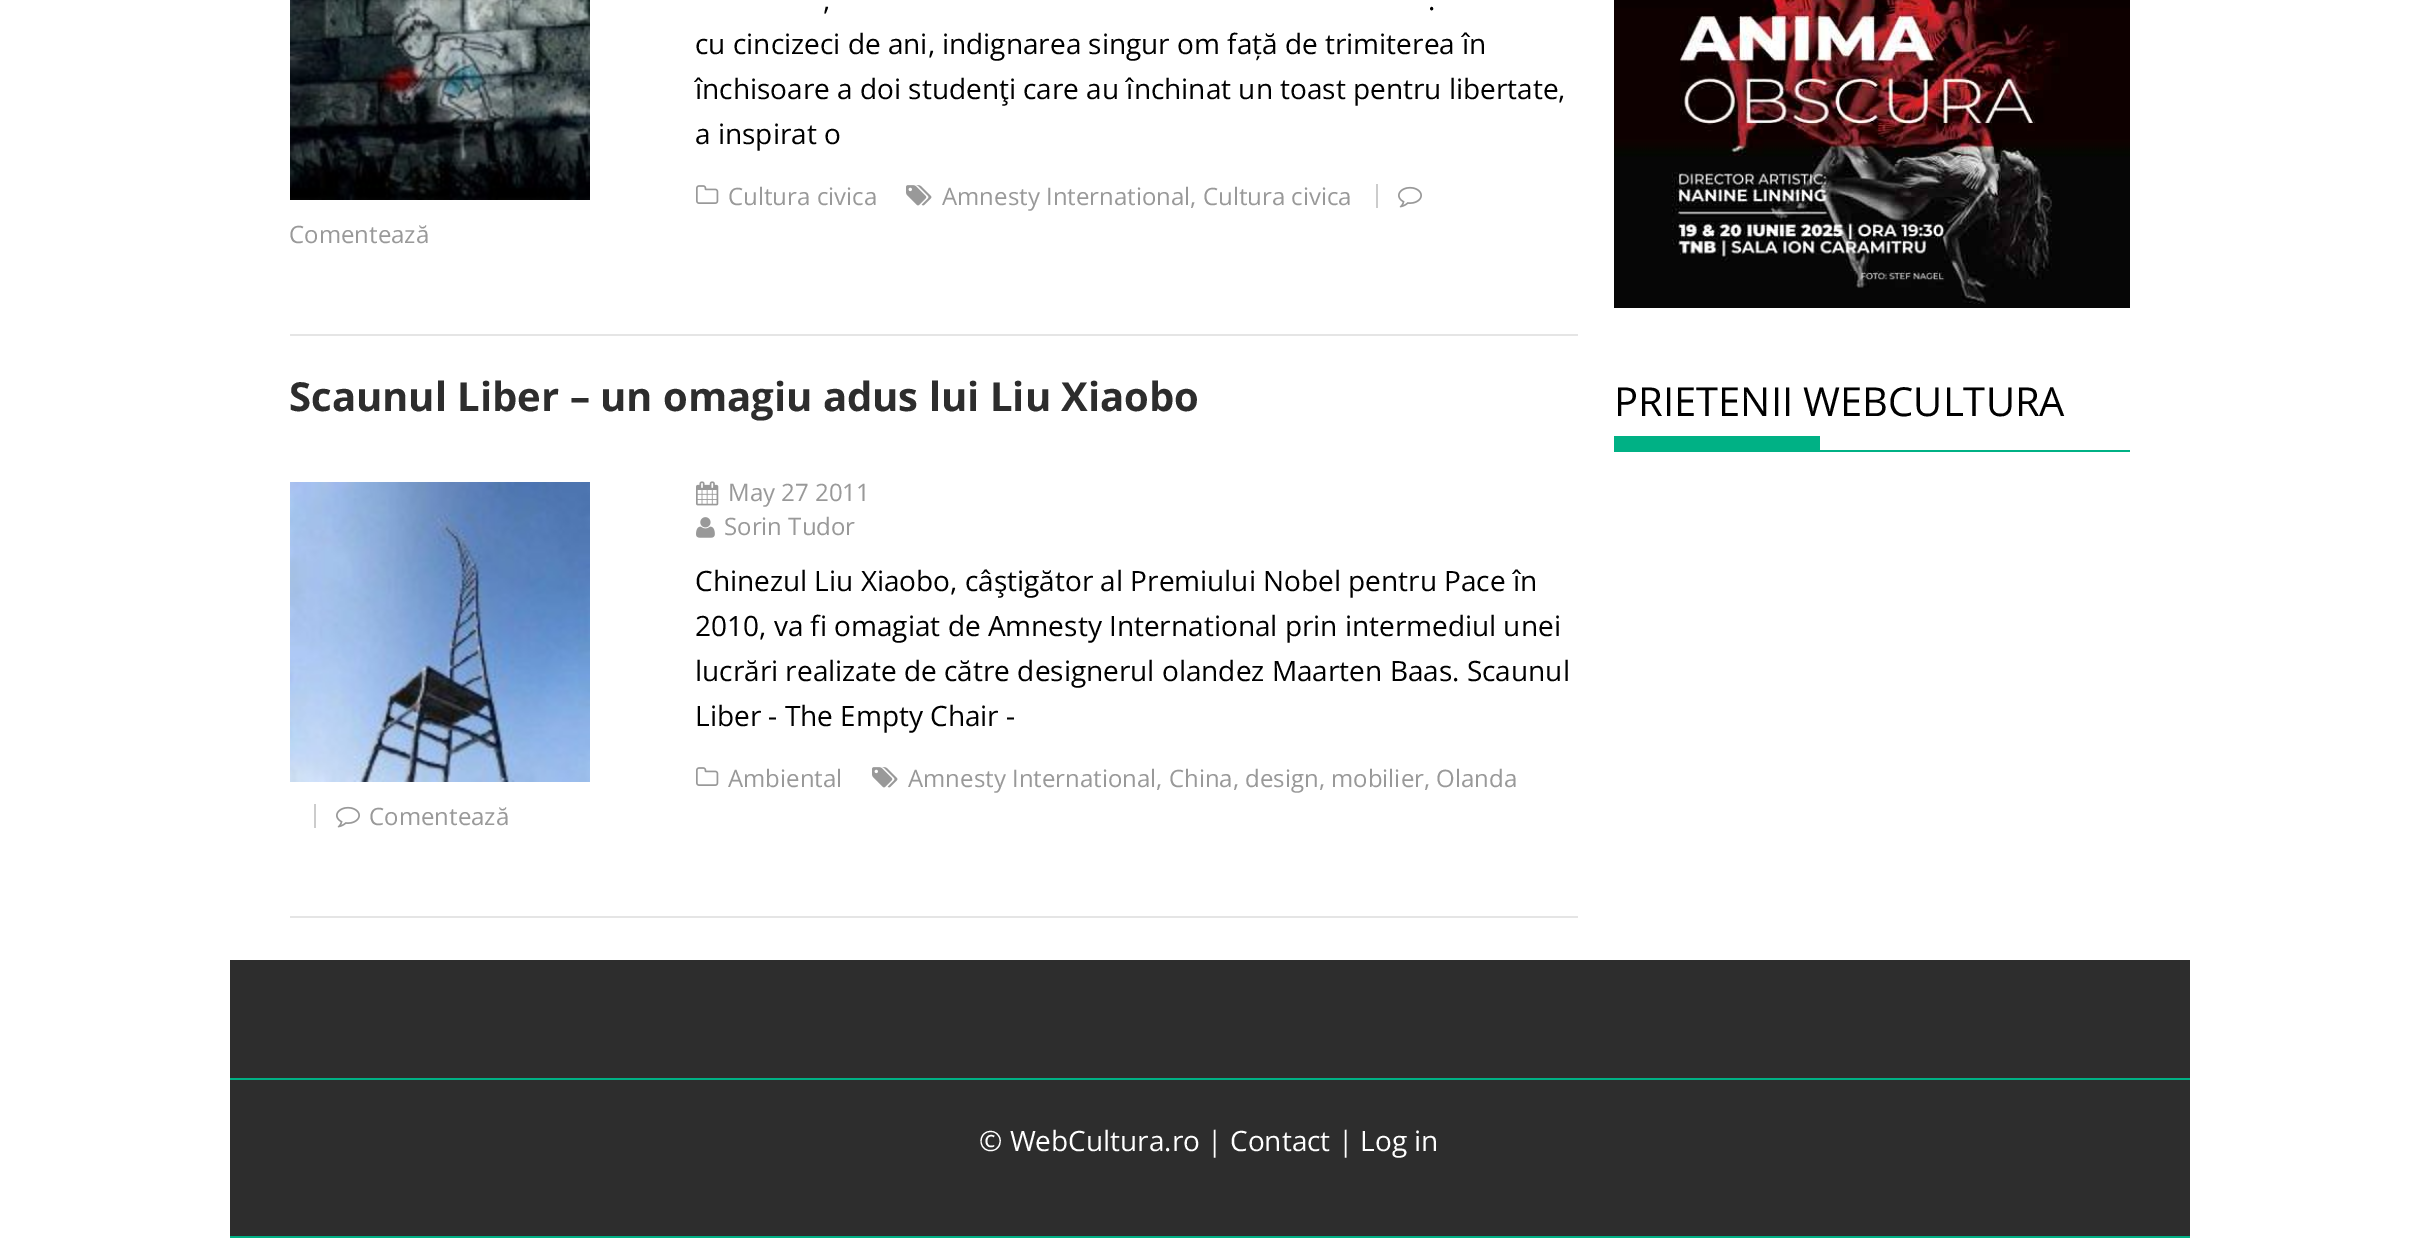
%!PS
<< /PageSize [2418 1238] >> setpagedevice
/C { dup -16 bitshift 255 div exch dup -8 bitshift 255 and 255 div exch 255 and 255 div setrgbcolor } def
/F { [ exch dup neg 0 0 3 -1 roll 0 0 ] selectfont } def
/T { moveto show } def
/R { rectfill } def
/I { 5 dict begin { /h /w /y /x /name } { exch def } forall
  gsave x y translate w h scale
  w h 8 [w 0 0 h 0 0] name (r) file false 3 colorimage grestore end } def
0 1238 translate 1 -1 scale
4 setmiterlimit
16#FFFFFF C
0 0 2418 1238 R
16#E5E5E5 C
290 334 1288 2 R
(1.rgb) 290 0 300 200 I
/OpenSans-Regular 28 F
16#000000 C
(,) 823 10 T
(.) 1428 10 T
(cu cincizeci de ani, indignarea singur om față de trimiterea în) 695 54 T
(închisoare a doi studenţi care au închinat un toast pentru libertate,) 695 99 T
(a inspirat o) 695 144 T
(2.rgb) 696 185 23 19 I
/OpenSans-Regular 24 F
16#999999 C
(Cultura civica) 728 205 T
(3.rgb) 906 185 26 21 I
(Amnesty International, Cultura civica) 942 205 T
16#CCCCCC C
1376 184 2 24 R
(4.rgb) 1398 186 24 22 I
16#999999 C
(Comentează) 289 243 T
16#E5E5E5 C
290 916 1288 2 R
/OpenSans-Bold 40 F
16#2D2D2D C
(Scaunul Liber – un omagiu adus lui Liu Xiaobo) 289 411 T
(5.rgb) 290 482 300 300 I
(6.rgb) 696 481 23 25 I
/OpenSans-Regular 24 F
16#999999 C
(May 27 2011) 728 501 T
(7.rgb) 696 517 19 21 I
(Sorin Tudor) 724 535 T
/OpenSans-Regular 28 F
16#000000 C
(Chinezul Liu Xiaobo, câştigător al Premiului Nobel pentru Pace în) 695 591 T
(2010, va fi omagiat de Amnesty International prin intermediul unei) 695 636 T
(lucrări realizate de către designerul olandez Maarten Baas. Scaunul) 695 681 T
(Liber - The Empty Chair -) 695 726 T
(2.rgb) 696 767 23 19 I
/OpenSans-Regular 24 F
16#999999 C
(Ambiental) 728 787 T
(3.rgb) 872 767 26 21 I
(Amnesty International, China, design, mobilier, Olanda) 908 787 T
16#CCCCCC C
314 804 2 24 R
(4.rgb) 336 806 24 22 I
16#999999 C
(Comentează) 369 825 T
(8.rgb) 1614 0 516 308 I
16#00B185 C
1614 450 516 2 R
/OpenSans-Regular 40 F
16#000000 C
(PRIETENII WEBCULTURA) 1614 416 T
16#00B185 C
1614 436 206 14 R
16#2D2D2D C
230 960 1960 276 R
16#00B185 C
230 1236 1960 2 R
230 1078 1960 2 R
/OpenSans-Regular 28 F
16#FFFFFF C
(© WebCultura.ro | Contact | Log in) 979 1151 T
showpage
